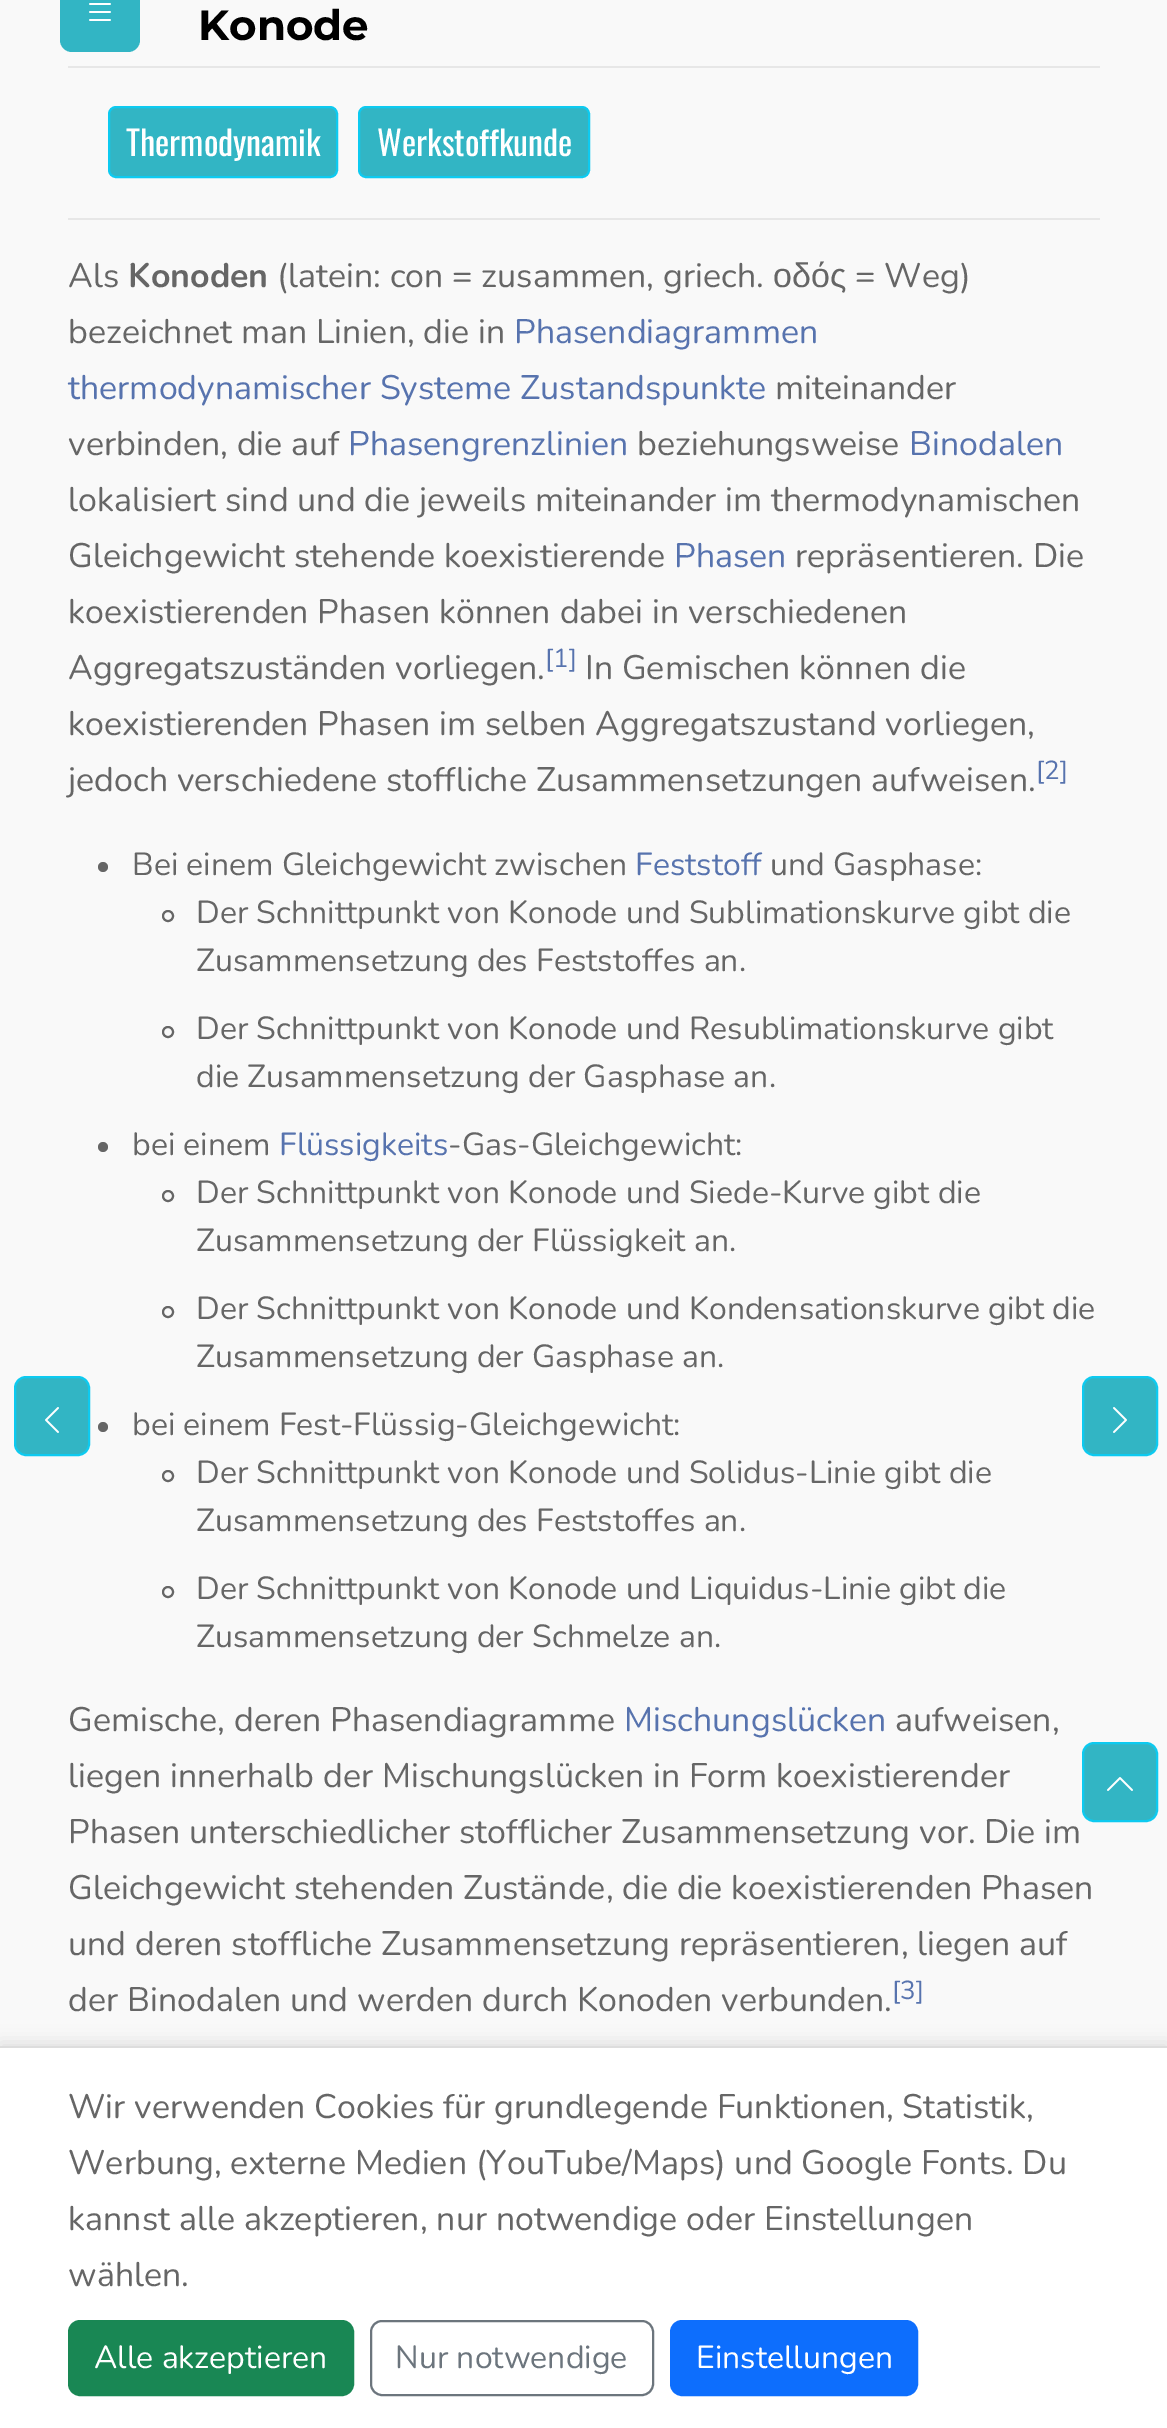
%!PS
<< /PageSize [1167 2428] /PageUsesTransparency true >> setpagedevice
/f/fill load def
/s/stroke load def
/q/gsave load def
/Q_/grestore load def
/w/setlinewidth load def
/C { dup -16 bitshift 255 div exch dup -8 bitshift 255 and 255 div exch 255 and 255 div setrgbcolor } def
/F { [ exch dup neg 0 0 3 -1 roll 0 0 ] selectfont } def
/T { moveto show } def
/R { rectfill } def
/A { dup .setfillconstantalpha .setstrokeconstantalpha } def
/O { newpath 0 360 arc closepath } def
/Q { 5 dict begin { /r /h /w /y /x } { exch def } forall
  x r add y moveto x w add y 2 copy h add r arct x w add y h add x 1 index r arct
  x y h add x y r arct x y 2 copy exch w add exch r arct closepath end } def
/S { 12 dict begin { /a /b /q /h /w /y /x } { exch def } forall gsave /was 0 def
  9 -2 -9 { dup b mul 4 div /e exch def 1 sub .425 mul 2.718 exch exp 1 add a .99 .min exch div /now exch def
    1 1 now sub 1 was sub div sub A /was now def
    w h .min e 2 mul add 0 gt { x e sub y e sub w e 2 mul add h e 2 mul add
      q e add b .6 mul add w h .min 2 div e add .min 0 .max Q fill } if } for grestore end } def
/I { 5 dict begin { /h /w /y /x /name } { exch def } forall
  gsave x y translate w h scale
  w h 8 [w 0 0 h 0 0] name (r) file false 3 colorimage grestore end } def
0 .pushpdf14devicefilter
0 2428 translate 1 -1 scale
4 setmiterlimit
16#F9F9F9 C
0 0 1167 2428 R
16#32B5C4 C
60 -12 80 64 12 Q f
(1.rgb) 89 3 22 18 I
/Montserrat-Bold 42 F
16#000000 C
(Konode) 198 40 T
16#E7E7E7 C
68 66 1032 2 R
68 218 1032 2 R
16#32B5C4 C
109 107 228 70 7 Q q f Q_
16#0DCAF0 C
2 w
s
/Oswald-Regular 34 F
16#FFFFFF C
(Thermodynamik) 126 156 T
16#32B5C4 C
359 107 230 70 7 Q q f Q_
16#0DCAF0 C
s
16#FFFFFF C
(Werkstoffkunde) 377 156 T
/Nunito-Regular 34 F
16#666666 C
(Als) 68 287 T
/Nunito-Bold 34 F
(Konoden) 128 287 T
/Nunito-Regular 34 F
(\(latein: con = zusammen, griech.) 277 287 T
/LiberationSans-Regular 34 F
(οδός) 773 287 T
/Nunito-Regular 34 F
(= Weg\)) 855 287 T
(bezeichnet man Linien, die in) 68 343 T
16#5773AE C
(Phasendiagrammen) 514 343 T
(thermodynamischer Systeme Zustandspunkte) 68 399 T
16#666666 C
(miteinander) 775 399 T
(verbinden, die auf) 68 455 T
16#5773AE C
(Phasengrenzlinien) 348 455 T
16#666666 C
(beziehungsweise) 637 455 T
16#5773AE C
(Binodalen) 909 455 T
16#666666 C
(lokalisiert sind und die jeweils miteinander im thermodynamischen) 68 511 T
(Gleichgewicht stehende koexistierende) 68 567 T
16#5773AE C
(Phasen) 674 567 T
16#666666 C
(repräsentieren. Die) 795 567 T
(koexistierenden Phasen können dabei in verschiedenen) 68 623 T
(Aggregatszuständen vorliegen.) 68 679 T
/Nunito-Regular 26 F
16#5773AE C
([1]) 545 667 T
/Nunito-Regular 34 F
16#666666 C
(In Gemischen können die) 585 679 T
(koexistierenden Phasen im selben Aggregatszustand vorliegen,) 68 735 T
(jedoch verschiedene stoffliche Zusammensetzungen aufweisen.) 68 791 T
/Nunito-Regular 26 F
16#5773AE C
([2]) 1036 779 T
16#666666 C
103 867 5 O f
/Nunito-Regular 32 F
(Bei einem Gleichgewicht zwischen) 132 875 T
16#5773AE C
(Feststoff) 635 875 T
16#666666 C
(und Gasphase:) 770 875 T
168 916 5 O s
(Der Schnittpunkt von Konode und Sublimationskurve gibt die) 196 923 T
(Zusammensetzung des Feststoffes an.) 196 971 T
168 1032 5 O s
(Der Schnittpunkt von Konode und Resublimationskurve gibt) 196 1039 T
(die Zusammensetzung der Gasphase an.) 196 1087 T
103 1147 5 O f
(bei einem) 132 1155 T
16#5773AE C
(Flüssigkeits) 279 1155 T
16#666666 C
(-Gas-Gleichgewicht:) 448 1155 T
168 1196 5 O s
(Der Schnittpunkt von Konode und Siede-Kurve gibt die) 196 1203 T
(Zusammensetzung der Flüssigkeit an.) 196 1251 T
168 1312 5 O s
(Der Schnittpunkt von Konode und Kondensationskurve gibt die) 196 1319 T
(Zusammensetzung der Gasphase an.) 196 1367 T
103 1427 5 O f
(bei einem Fest-Flüssig-Gleichgewicht:) 132 1435 T
168 1476 5 O s
(Der Schnittpunkt von Konode und Solidus-Linie gibt die) 196 1483 T
(Zusammensetzung des Feststoffes an.) 196 1531 T
168 1592 5 O s
(Der Schnittpunkt von Konode und Liquidus-Linie gibt die) 196 1599 T
(Zusammensetzung der Schmelze an.) 196 1647 T
/Nunito-Regular 34 F
(Gemische, deren Phasendiagramme) 68 1731 T
16#5773AE C
(Mischungslücken) 624 1731 T
16#666666 C
(aufweisen,) 895 1731 T
(liegen innerhalb der Mischungslücken in Form koexistierender) 68 1787 T
(Phasen unterschiedlicher stofflicher Zusammensetzung vor. Die im) 68 1843 T
(Gleichgewicht stehenden Zustände, die die koexistierenden Phasen) 68 1899 T
(und deren stoffliche Zusammensetzung repräsentieren, liegen auf) 68 1955 T
(der Binodalen und werden durch Konoden verbunden.) 68 2011 T
/Nunito-Regular 26 F
16#5773AE C
([3]) 892 1999 T
16#32B5C4 C
15 1377 74 78 11 Q q f Q_
16#0DCAF0 C
s
(2.rgb) 45 1407 14 26 I
16#32B5C4 C
1083 1377 74 78 11 Q q f Q_
16#0DCAF0 C
s
(3.rgb) 1113 1407 14 26 I
16#32B5C4 C
1083 1743 74 78 11 Q q f Q_
16#0DCAF0 C
s
(4.rgb) 1107 1777 26 14 I
16#000000 C
0 2042 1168 382 0 8 .1 S
16#FFFFFF C
0 2048 1167 380 R
16#DDDDDD C
0 2046 1167 2 R
/Nunito-Regular 34 F
16#666666 C
(Wir verwenden Cookies für grundlegende Funktionen, Statistik,) 68 2118 T
(Werbung, externe Medien \(YouTube/Maps\) und Google Fonts. Du) 68 2174 T
(kannst alle akzeptieren, nur notwendige oder Einstellungen) 68 2230 T
(wählen.) 68 2286 T
16#198754 C
69 2321 284 74 11 Q q f Q_
s
/Nunito-Regular 32 F
16#FFFFFF C
(Alle akzeptieren) 94 2368 T
16#6C757D C
371 2321 282 74 11 Q s
(Nur notwendige) 395 2368 T
16#0D6EFD C
671 2321 246 74 11 Q q f Q_
s
16#FFFFFF C
(Einstellungen) 696 2368 T
.poppdf14devicefilter showpage
